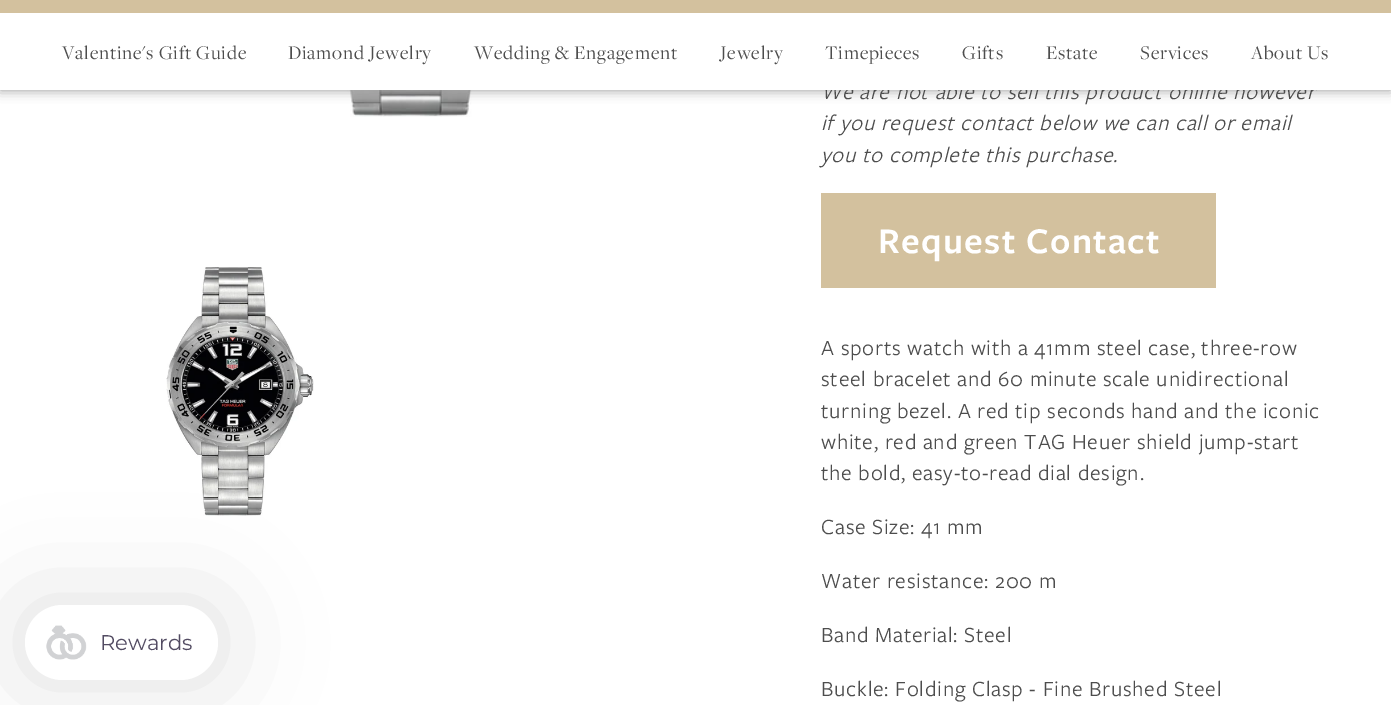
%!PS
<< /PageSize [1391 705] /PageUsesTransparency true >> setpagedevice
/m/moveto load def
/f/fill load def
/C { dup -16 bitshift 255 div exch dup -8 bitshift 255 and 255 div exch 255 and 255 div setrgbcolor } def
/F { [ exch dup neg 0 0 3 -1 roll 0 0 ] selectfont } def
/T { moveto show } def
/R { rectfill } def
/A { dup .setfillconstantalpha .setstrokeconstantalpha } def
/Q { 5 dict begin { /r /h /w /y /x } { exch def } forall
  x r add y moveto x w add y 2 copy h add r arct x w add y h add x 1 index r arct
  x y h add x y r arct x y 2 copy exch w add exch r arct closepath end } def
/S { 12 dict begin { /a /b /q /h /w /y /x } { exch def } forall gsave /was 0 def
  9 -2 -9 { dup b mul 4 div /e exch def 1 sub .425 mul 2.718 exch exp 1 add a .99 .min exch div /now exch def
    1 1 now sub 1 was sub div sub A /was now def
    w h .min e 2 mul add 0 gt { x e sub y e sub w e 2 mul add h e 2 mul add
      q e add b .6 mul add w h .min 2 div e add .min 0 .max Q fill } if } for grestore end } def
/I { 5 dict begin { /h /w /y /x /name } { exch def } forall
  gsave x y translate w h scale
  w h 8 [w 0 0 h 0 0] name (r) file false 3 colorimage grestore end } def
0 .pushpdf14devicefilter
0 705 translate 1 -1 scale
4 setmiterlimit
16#FFFFFF C
0 0 1391 705 R
(2.rgb) 345 90 131 27 I
16#959595 C
0 0 1391 90 0 6 1 S
16#D3C19E C
0 0 1391 13 R
/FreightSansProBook-Italic 22.5 F
16#4D4D4D C
821 99 m .75 0 (We are not able to sell this product online however) ashow
16#FFFFFF C
0 13 1391 77 R
/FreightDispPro-Regular 20 F
16#4D4D4D C
62 59 m .75 0 (Valentine's Gift Guide) ashow
288 59 m .75 0 (Diamond Jewelry) ashow
474 59 m .75 0 (Wedding & Engagement) ashow
720 59 m .75 0 (Jewelry) ashow
825 59 m .75 0 (Timepieces) ashow
962 59 m .75 0 (Gifts) ashow
1046 59 m .75 0 (Estate) ashow
1140 59 m .75 0 (Services) ashow
1251 59 m .75 0 (About Us) ashow
(3.rgb) 166 267 148 249 I
16#000000 C
25 605 193 75 37.5 50 .12 S
16#FFFFFF C
25 605 193 75 37.5 Q f
(1.rgb) 46 625 41 35 I
/Montserrat-Regular 21.25 F
16#524B62 C
(Rewards) 100 650 T
/FreightSansProBook-Italic 22.5 F
16#4D4D4D C
821 130 m .75 0 (if you request contact below we can call or email) ashow
821 162 m .75 0 (you to complete this purchase.) ashow
16#D3C19E C
821 193 395 95 R
/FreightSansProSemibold-SemiBold 37.5 F
16#FFFFFF C
878 253 m 1.25 0 (Request Contact) ashow
/FreightSansProBook-Regular 22.5 F
16#4D4D4D C
821 355 m .75 0 (A sports watch with a 41mm steel case, three-row) ashow
821 386 m .75 0 (steel bracelet and 60 minute scale unidirectional) ashow
821 418 m .75 0 (turning bezel. A red tip seconds hand and the iconic) ashow
821 449 m .75 0 (white, red and green TAG Heuer shield jump-start) ashow
821 480 m .75 0 (the bold, easy-to-read dial design.) ashow
821 534 m .75 0 (Case Size: 41 mm) ashow
821 588 m .75 0 (Water resistance: 200 m) ashow
821 642 m .75 0 (Band Material: Steel) ashow
821 696 m .75 0 (Buckle: Folding Clasp - Fine Brushed Steel) ashow
.poppdf14devicefilter showpage
